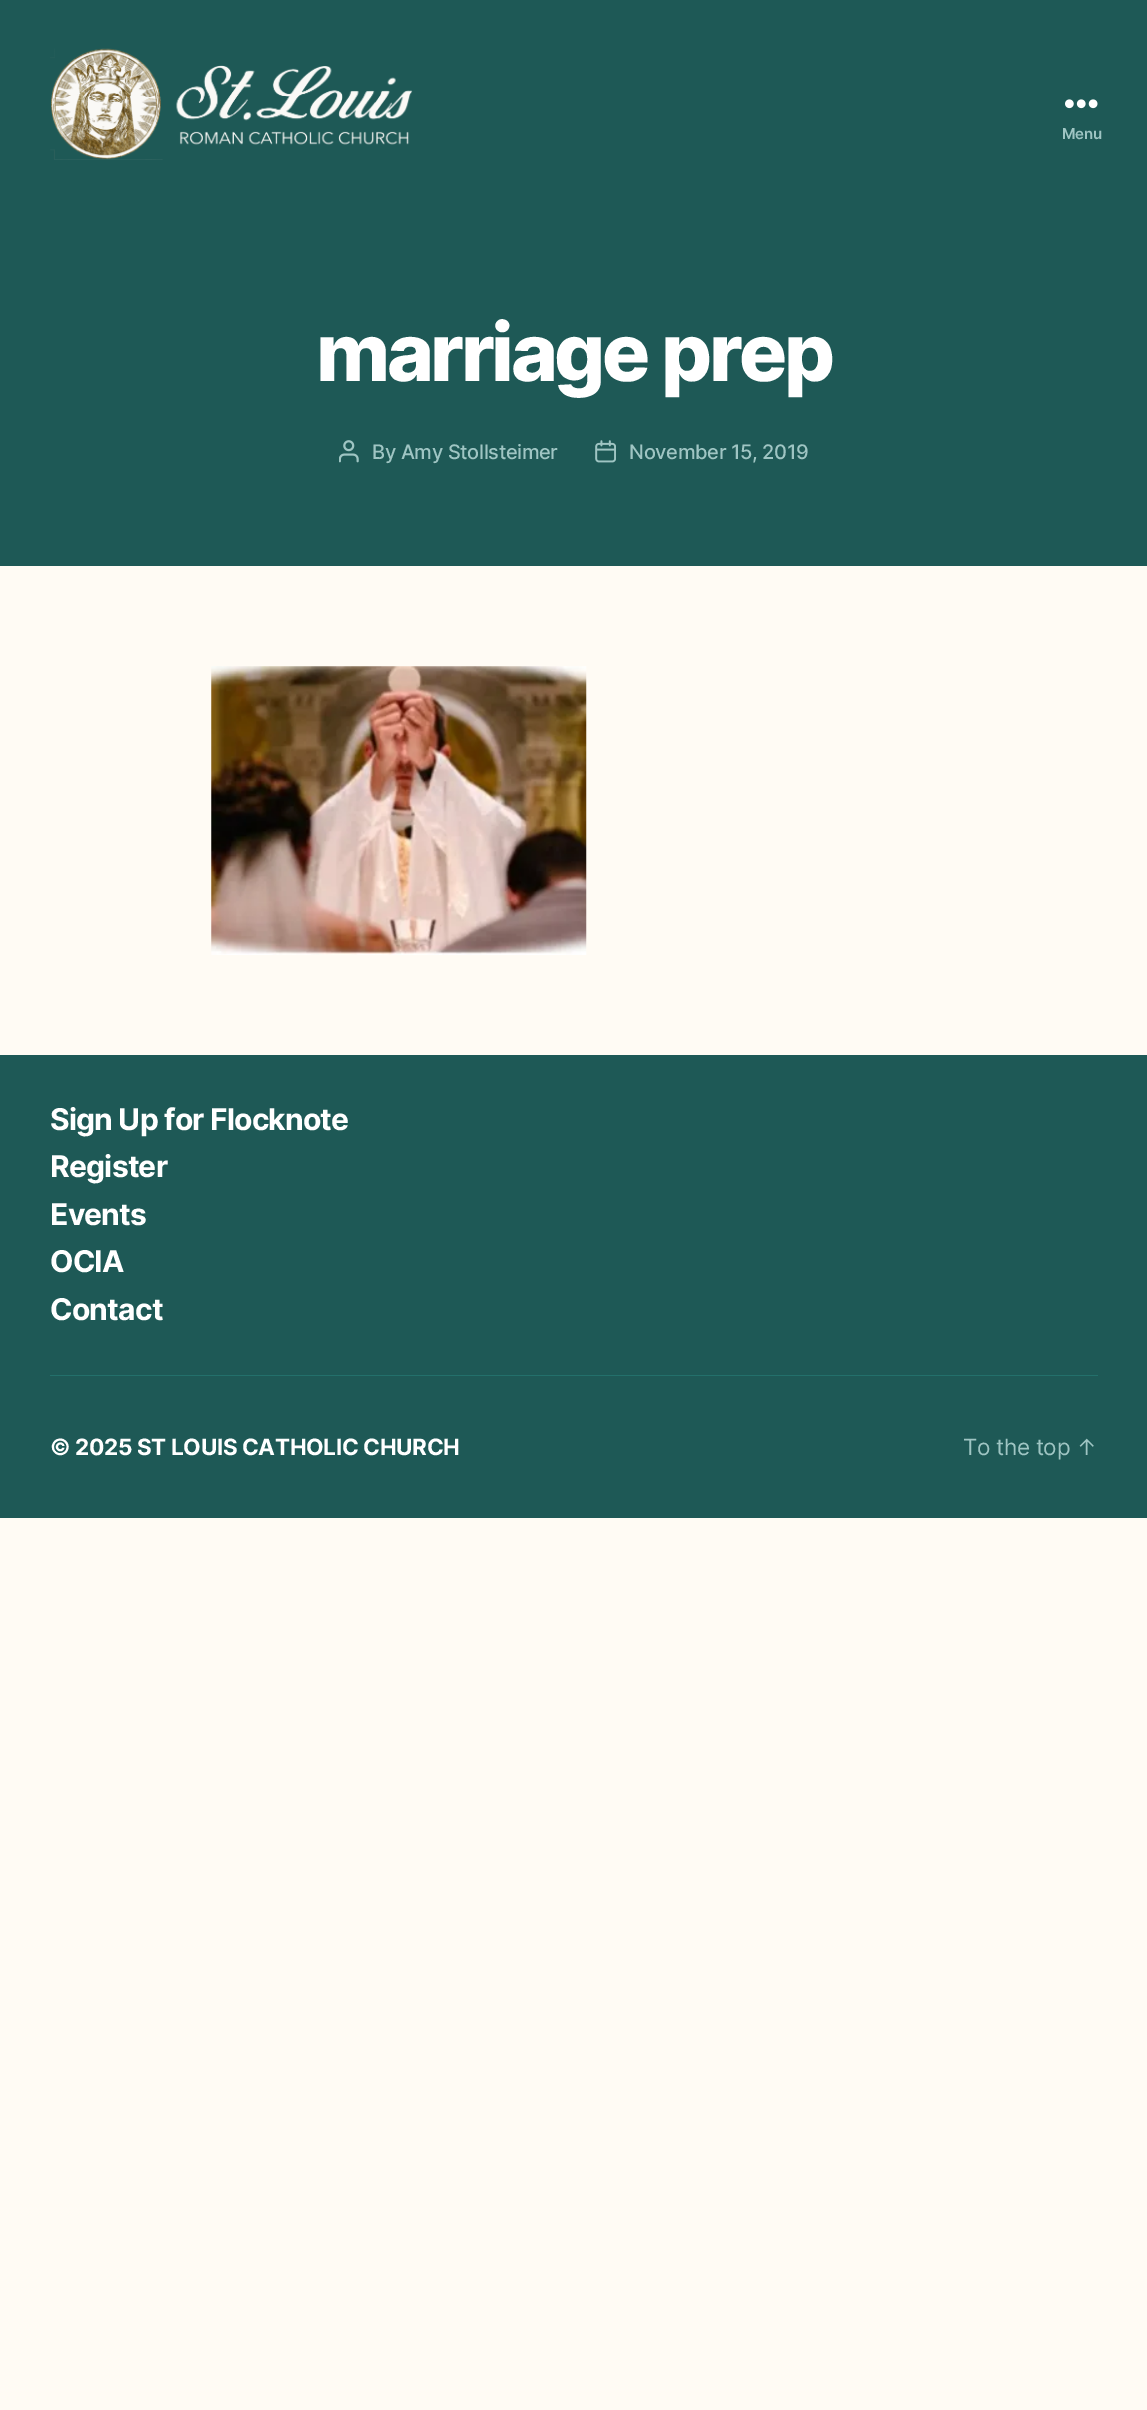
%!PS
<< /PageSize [1147 2410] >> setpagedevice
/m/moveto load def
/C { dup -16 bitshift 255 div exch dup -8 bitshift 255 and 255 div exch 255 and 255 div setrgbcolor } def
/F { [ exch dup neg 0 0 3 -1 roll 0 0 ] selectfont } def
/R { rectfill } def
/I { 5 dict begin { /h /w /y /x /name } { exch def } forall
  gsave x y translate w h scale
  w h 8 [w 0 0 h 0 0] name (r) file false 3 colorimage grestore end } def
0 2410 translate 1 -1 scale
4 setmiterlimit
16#FFFBF4 C
0 0 1147 2410 R
16#1E5956 C
0 0 1147 566 R
(1.rgb) 50 48 363 112 I
(2.rgb) 1065 99 33 10 I
/Inter-SemiBold 15 F
16#9FC5C3 C
1062 139 m -.35 0 (Menu) ashow
/Inter-ExtraBold 80 F
16#FFFFFF C
316 381 m -3.3 0 (marriage prep) ashow
(3.rgb) 339 440 20 23 I
/Inter-Medium 20 F
16#9FC5C3 C
372 459 m -.35 0 (By Amy Stollsteimer) ashow
(4.rgb) 595 440 21 23 I
629 459 m -.35 0 (November 15, 2019) ashow
(5.rgb) 211 666 376 289 I
16#1E5956 C
0 1055 1147 463 R
16#23706B C
50 1375 1048 1 R
/Inter-Bold 30 F
16#FFFFFF C
50 1130 m -.8 0 (Sign Up for Flocknote) ashow
50 1177 m -.8 0 (Register) ashow
50 1225 m -.8 0 (Events) ashow
50 1272 m -.8 0 (OCIA) ashow
50 1320 m -.8 0 (Contact) ashow
/Inter-Bold 22.5 F
50 1455 m -.35 0 (© 2025 ST LOUIS CATHOLIC CHURCH) ashow
/Inter-Regular 22.5 F
16#9FC5C3 C
963 1455 m -.35 0 (To the top ↑) ashow
showpage
